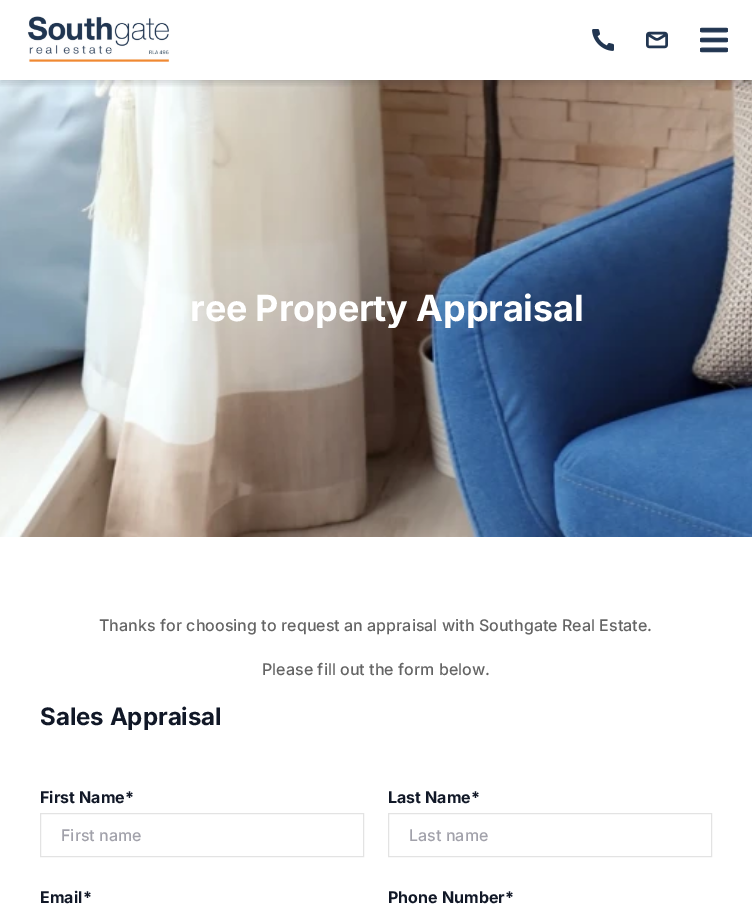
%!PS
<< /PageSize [752 913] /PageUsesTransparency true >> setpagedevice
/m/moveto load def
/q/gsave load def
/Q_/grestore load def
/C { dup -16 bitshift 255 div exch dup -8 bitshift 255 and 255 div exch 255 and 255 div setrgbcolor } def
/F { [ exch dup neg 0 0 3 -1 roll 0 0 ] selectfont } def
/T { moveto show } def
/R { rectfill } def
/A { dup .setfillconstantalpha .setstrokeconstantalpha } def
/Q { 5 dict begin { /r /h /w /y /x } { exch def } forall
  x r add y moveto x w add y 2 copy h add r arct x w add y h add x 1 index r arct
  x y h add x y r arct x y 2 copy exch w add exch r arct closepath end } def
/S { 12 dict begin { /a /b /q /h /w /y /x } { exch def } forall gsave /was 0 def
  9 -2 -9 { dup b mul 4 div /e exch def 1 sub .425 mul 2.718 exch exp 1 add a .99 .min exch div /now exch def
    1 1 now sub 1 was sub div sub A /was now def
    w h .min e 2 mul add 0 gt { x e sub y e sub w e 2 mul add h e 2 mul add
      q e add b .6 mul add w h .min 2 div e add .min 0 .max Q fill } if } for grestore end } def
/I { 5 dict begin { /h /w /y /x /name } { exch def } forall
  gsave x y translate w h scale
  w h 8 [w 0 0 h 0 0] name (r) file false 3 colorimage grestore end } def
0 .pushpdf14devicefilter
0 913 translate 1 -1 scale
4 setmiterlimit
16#FFFFFF C
0 0 752 913 R
(5.rgb) 0 80 752 457 I
q
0 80 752 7 rectclip
16#22242A C
0 4 752 80 0 4 .08 S
Q_
q
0 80 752 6 rectclip
16#22242A C
0 2 752 80 0 4 .12 S
Q_
(1.rgb) 27 16 143 46 I
(2.rgb) 592 29 22 22 I
(3.rgb) 646 31 22 18 I
(4.rgb) 700 27 28 26 I
q
169 288 414 40 rectclip
/Inter-Bold 36 F
190 321 m -.15 0 (ree Property Appraisal) ashow
Q_
/Inter-Medium 16 F
16#646464 C
99 631 m .05 0 (Thanks for choosing to request an appraisal with Southgate Real Estate.) ashow
262 675 m .05 0 (Please fill out the form below.) ashow
/Inter-Bold 24 F
16#111827 C
(Sales Appraisal) 40 725 T
/Inter-Bold 16 F
40 803 m .05 0 (First Name*) ashow
16#E3E3E3 C
40.5 813.5 323 43 rectstroke
/Inter-Medium 16 F
16#A1A1AA C
61 841 m .05 0 (First name) ashow
/Inter-Bold 16 F
16#111827 C
388 803 m .05 0 (Last Name*) ashow
16#E3E3E3 C
388.5 813.5 323 43 rectstroke
/Inter-Medium 16 F
16#A1A1AA C
409 841 m .05 0 (Last name) ashow
/Inter-Bold 16 F
16#111827 C
40 903 m .05 0 (Email*) ashow
388 903 m .05 0 (Phone Number*) ashow
.poppdf14devicefilter showpage
